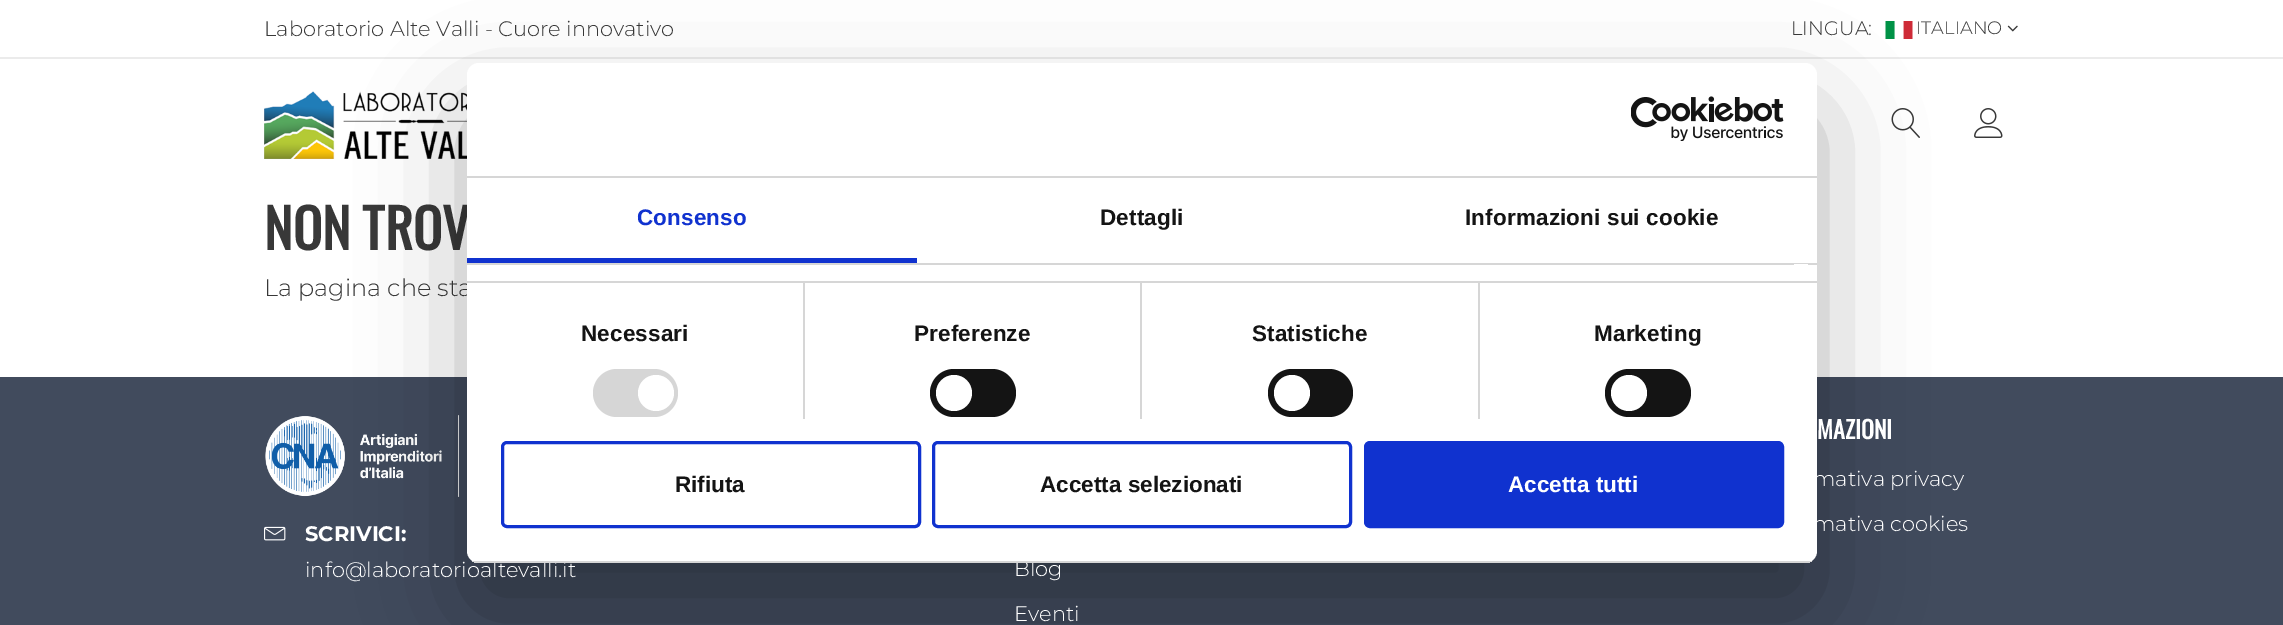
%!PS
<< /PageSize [2283 625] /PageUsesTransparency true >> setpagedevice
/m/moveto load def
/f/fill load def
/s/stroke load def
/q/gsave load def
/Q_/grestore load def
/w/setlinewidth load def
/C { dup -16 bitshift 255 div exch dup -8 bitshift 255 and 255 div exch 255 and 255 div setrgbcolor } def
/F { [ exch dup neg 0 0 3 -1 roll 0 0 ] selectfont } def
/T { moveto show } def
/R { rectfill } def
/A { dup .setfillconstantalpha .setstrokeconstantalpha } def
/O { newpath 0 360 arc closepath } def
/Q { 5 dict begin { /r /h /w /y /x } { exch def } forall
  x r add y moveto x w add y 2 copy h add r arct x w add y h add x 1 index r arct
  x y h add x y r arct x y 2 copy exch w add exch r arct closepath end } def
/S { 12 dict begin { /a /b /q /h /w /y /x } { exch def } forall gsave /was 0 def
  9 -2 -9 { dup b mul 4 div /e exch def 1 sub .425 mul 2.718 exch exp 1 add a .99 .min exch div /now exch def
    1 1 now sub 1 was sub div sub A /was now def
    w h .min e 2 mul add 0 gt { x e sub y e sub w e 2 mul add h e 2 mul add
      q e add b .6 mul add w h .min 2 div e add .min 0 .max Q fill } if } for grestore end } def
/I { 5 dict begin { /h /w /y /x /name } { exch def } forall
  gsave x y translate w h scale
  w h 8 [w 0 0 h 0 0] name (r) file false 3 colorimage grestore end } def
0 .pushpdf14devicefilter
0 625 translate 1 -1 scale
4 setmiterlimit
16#FFFFFF C
0 0 2283 625 R
16#EBEBEB C
0 57 2283 2 R
/Montserrat-Light 21 F
16#383838 C
(Laboratorio Alte Valli - Cuore innovativo) 264 36 T
/Montserrat-Light 19.5 F
(LINGUA:) 1791 35 T
(1.rgb) 1885 21 28 18 I
/Montserrat-Light 18 F
(ITALIANO) 1916 34 T
(2.rgb) 2007 25 11 7 I
(3.rgb) 264 91 203 68 I
(4.rgb) 1891 108 29 30 I
(5.rgb) 1974 108 29 30 I
/Oswald-Bold 54 F
(NON TROV) 264 250 T
/Montserrat-Light 24 F
(La pagina che sta) 264 296 T
16#414B5D C
0 377 2283 248 R
(7.rgb) 265 415 195 82 I
16#000000 C
467 111 1350 500 12 51 .3 S
16#FFFFFF C
467 63 1350 500 12 Q f
16#D6D6D6 C
467 176 1350 2 R
(6.rgb) 1631 96 153 45 I
467 263 1350 2 R
16#1032CF C
467 258 450 5 R
/LiberationSans-Bold 22.5 F
637 225 m .15 0 (Consenso) ashow
16#141414 C
1100 225 m .15 0 (Dettagli) ashow
1465 225 m .15 0 (Informazioni sui cookie) ashow
16#D6D6D6 C
803 282 2 137 R
1140 282 2 137 R
1478 282 2 137 R
467 281 1350 2 R
16#FFFFFF C
1794 264 14 1 R
16#141414 C
581 341 m .15 0 (Necessari) ashow
16#D6D6D6 C
593 369 85 48 24 Q f
16#FFFFFF C
656 393 18 O f
16#141414 C
914 341 m .15 0 (Preferenze) ashow
930 369 86 48 24 Q f
16#FFFFFF C
954 393 18 O f
16#141414 C
1252 341 m .15 0 (Statistiche) ashow
1268 369 85 48 24 Q f
16#FFFFFF C
1292 393 18 O f
16#141414 C
1594 341 m .15 0 (Marketing) ashow
1605 369 86 48 24 Q f
16#FFFFFF C
1629 393 18 O f
/Montserrat-Light 21 F
(info@laboratorioaltevalli.it) 305 577 T
(Blog) 1014 576 T
q
467 63 1350 500 12 Q clip newpath
16#D6D6D6 C
467 561 1350 2 R
Q_
16#1032CF C
3 w
502.5 442.5 417 84 4.5 Q s
/LiberationSans-Bold 22.5 F
16#141414 C
(Rifiuta) 675 492 T
16#1032CF C
933.5 442.5 417 84 4.5 Q s
16#141414 C
(Accetta selezionati) 1040 492 T
16#1032CF C
1365.5 442.5 417 84 4.5 Q q f Q_
s
16#FFFFFF C
(Accetta tutti) 1508 492 T
/Oswald-Bold 24 F
(MAZIONI) 1817 439 T
/Montserrat-Light 21 F
(mativa privacy) 1813 486 T
(mativa cookies) 1813 531 T
(8.rgb) 264 526 22 15 I
/Montserrat-Bold 21 F
(SCRIVICI:) 305 541 T
/Montserrat-Light 21 F
(Eventi) 1014 621 T
.poppdf14devicefilter showpage
